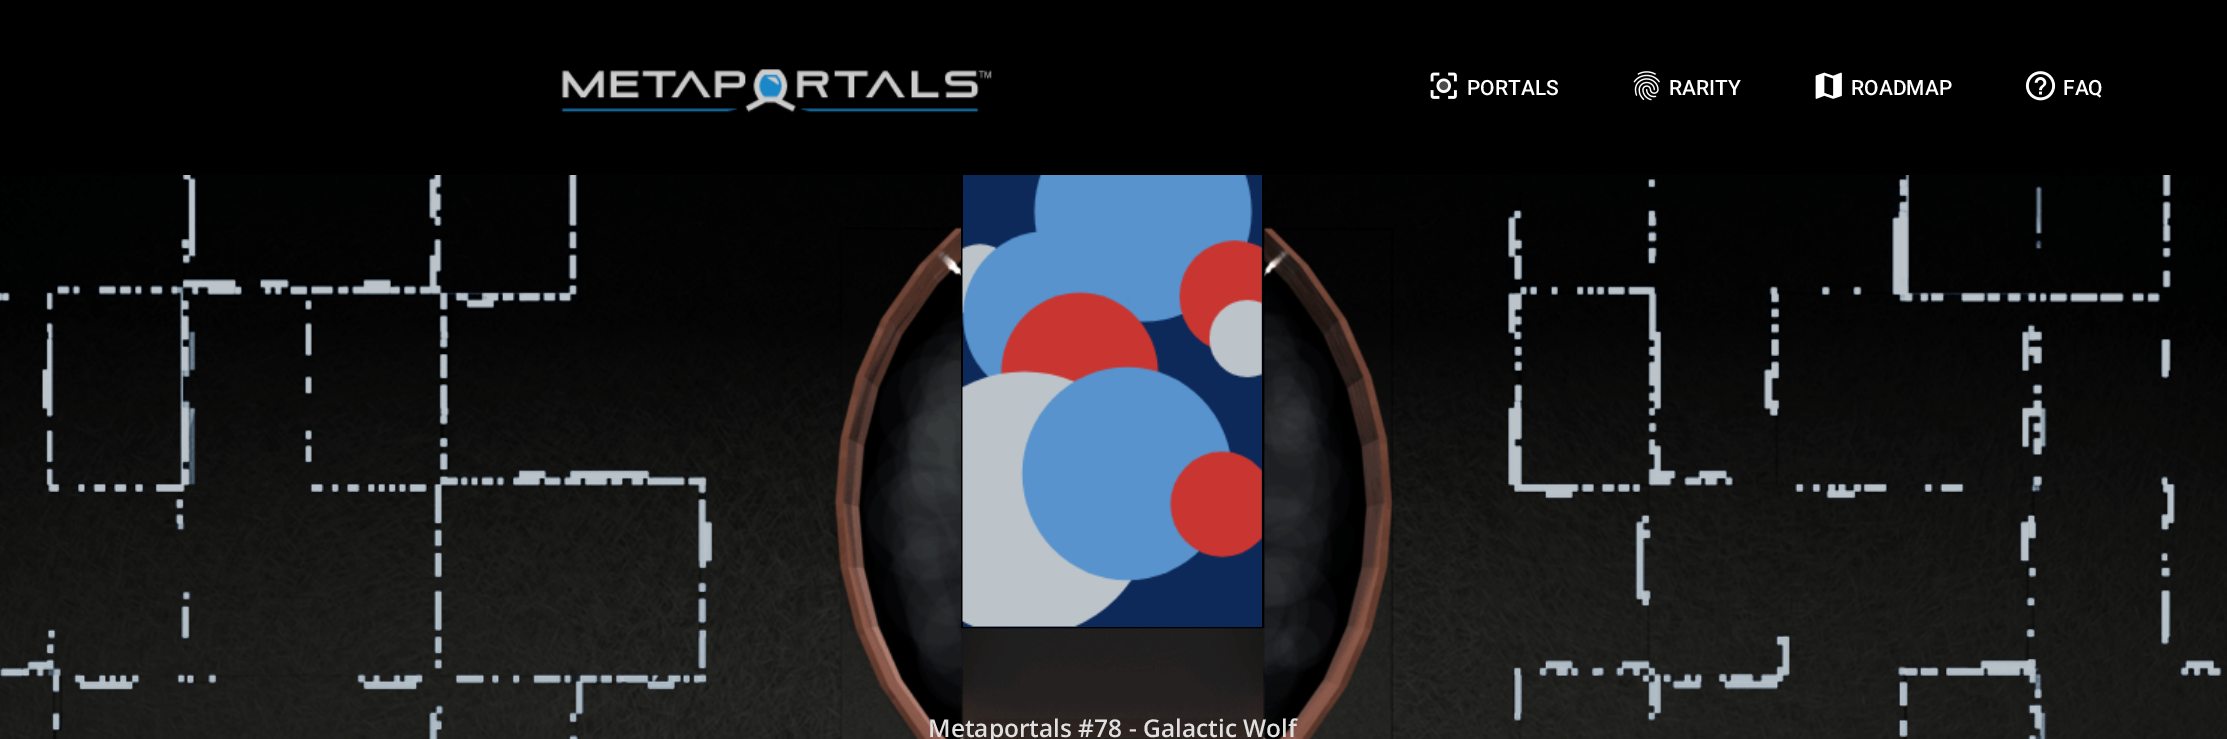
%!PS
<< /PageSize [2227 739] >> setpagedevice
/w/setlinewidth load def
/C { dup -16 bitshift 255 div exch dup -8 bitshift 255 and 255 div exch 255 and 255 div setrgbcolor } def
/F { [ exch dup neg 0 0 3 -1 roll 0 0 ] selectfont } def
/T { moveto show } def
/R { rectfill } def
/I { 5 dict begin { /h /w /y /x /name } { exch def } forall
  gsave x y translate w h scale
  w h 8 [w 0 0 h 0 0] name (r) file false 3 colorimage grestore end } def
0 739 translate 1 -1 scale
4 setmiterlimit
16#BCC4CA C
0 0 2227 739 R
(6.rgb) 0 175 2227 564 I
16#000000 C
2 w
962 167 301 460 rectstroke
0 0 2227 175 R
(1.rgb) 561 69 431 44 I
(2.rgb) 1430 72 27 27 I
/Roboto-Medium 21 F
16#FFFFFF C
(PORTALS) 1467 95 T
(3.rgb) 1633 71 27 30 I
(RARITY) 1669 95 T
(4.rgb) 1815 72 27 27 I
(ROADMAP) 1851 95 T
(5.rgb) 2025 71 31 30 I
(FAQ) 2063 95 T
16#0C295A C
963 175 299 452 R
(7.rgb) 962 175 300 452 I
/OpenSans-SemiBold 24.5 F
16#E0E0E0 C
(Metaportals #78 - Galactic Wolf) 928 737 T
showpage
